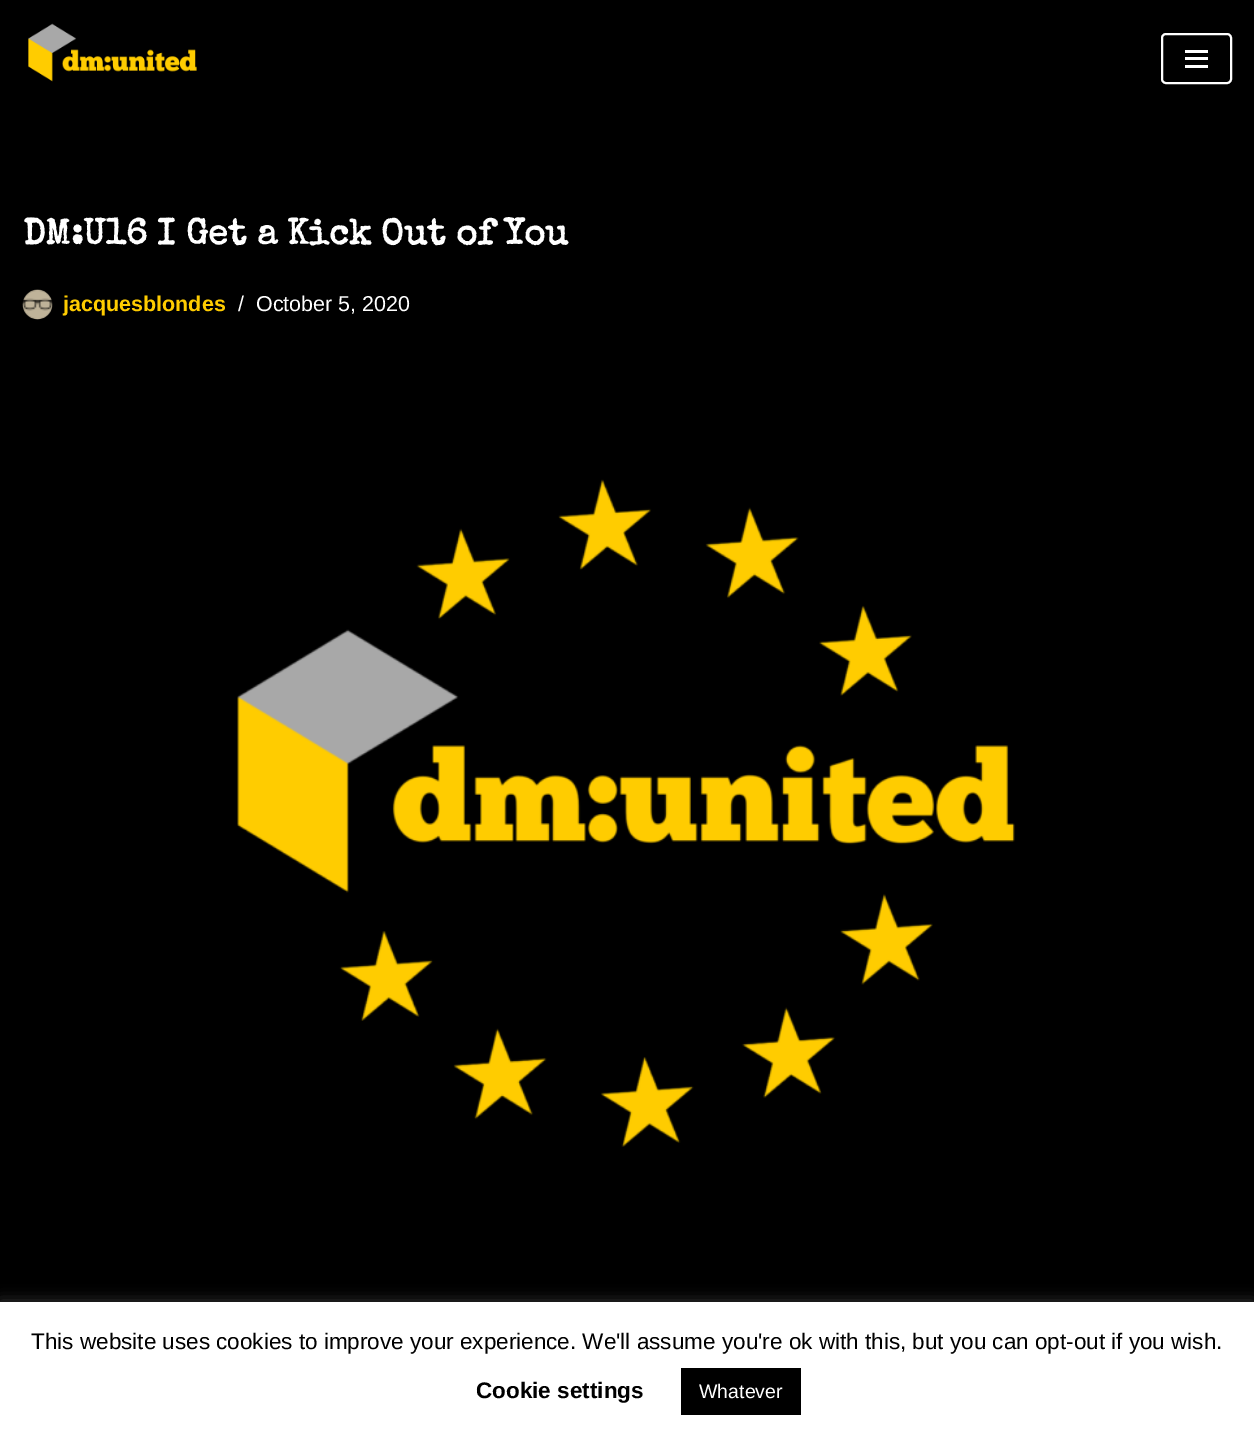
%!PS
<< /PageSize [1254 1440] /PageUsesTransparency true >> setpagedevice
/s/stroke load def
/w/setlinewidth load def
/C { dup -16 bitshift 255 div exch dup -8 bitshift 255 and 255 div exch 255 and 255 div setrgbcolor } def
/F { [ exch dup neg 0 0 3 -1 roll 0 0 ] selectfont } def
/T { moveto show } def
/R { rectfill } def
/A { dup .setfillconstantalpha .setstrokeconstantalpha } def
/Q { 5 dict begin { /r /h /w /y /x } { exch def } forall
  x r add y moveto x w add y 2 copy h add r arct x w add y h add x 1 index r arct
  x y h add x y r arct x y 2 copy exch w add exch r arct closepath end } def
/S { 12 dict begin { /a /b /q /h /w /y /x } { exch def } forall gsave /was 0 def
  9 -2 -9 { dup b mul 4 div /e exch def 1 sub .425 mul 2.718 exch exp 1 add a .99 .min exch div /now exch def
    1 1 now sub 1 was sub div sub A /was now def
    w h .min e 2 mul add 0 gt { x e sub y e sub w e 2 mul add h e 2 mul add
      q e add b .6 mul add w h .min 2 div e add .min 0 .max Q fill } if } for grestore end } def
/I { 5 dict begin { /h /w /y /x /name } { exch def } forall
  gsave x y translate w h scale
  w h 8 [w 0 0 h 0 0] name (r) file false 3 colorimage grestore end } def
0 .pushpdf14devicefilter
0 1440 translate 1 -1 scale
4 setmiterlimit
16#000000 C
0 0 1254 1440 R
(1.rgb) 28 23 169 59 I
16#FFFFFF C
2 w
1162 34 69 49 4 Q s
1185 50 23 3 R
1185 57 23 3 R
1185 65 23 3 R
/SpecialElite-Bold 36 F
(DM:U16 I Get a Kick Out of You) 23 244 T
(2.rgb) 22 289 31 31 I
/LiberationSans-Bold 21.5 F
16#FFCC00 C
(jacquesblondes) 63 311 T
/LiberationSans-Regular 21.5 F
16#FFFFFF C
(/) 238 311 T
(October 5, 2020) 256 311 T
(3.rgb) 237 479 778 668 I
16#ACABAB C
0 1301 1254 138 0 7.5 .3 S
16#FFFFFF C
0 1302 1254 138 R
/LiberationSans-Regular 22.5 F
16#000000 C
(This website uses cookies to improve your experience. We'll assume you're ok with this, but you can opt-out if you wish.) 31 1349 T
/LiberationSans-Bold 22.5 F
(Cookie settings) 476 1398 T
681 1368 120 47 R
/LiberationSans-Regular 19.5 F
16#FFFFFF C
(Whatever) 699 1398 T
.poppdf14devicefilter showpage
